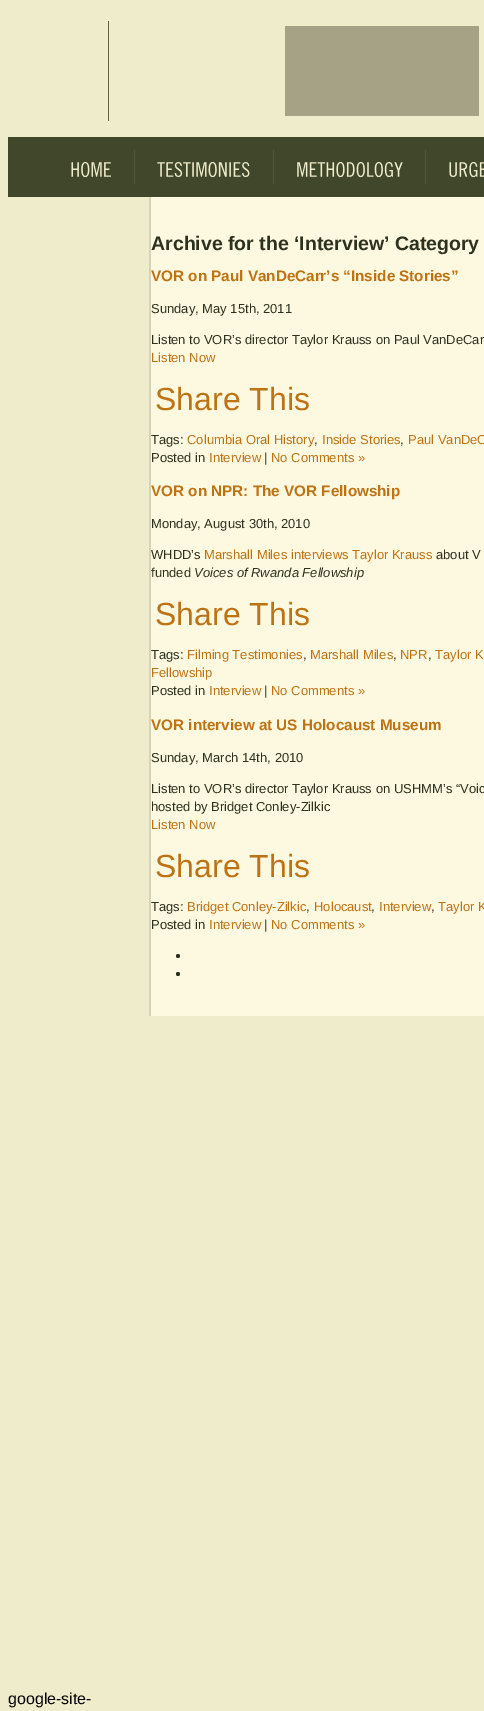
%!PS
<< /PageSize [484 1711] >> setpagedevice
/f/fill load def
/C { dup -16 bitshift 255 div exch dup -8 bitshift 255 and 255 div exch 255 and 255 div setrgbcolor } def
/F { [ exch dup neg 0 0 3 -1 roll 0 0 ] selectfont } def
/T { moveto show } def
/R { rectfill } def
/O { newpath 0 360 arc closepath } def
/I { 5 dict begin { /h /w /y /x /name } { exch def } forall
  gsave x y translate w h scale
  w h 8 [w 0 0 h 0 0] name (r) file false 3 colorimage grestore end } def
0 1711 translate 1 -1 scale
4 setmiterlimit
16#EFECCB C
0 0 484 1711 R
16#5E6840 C
108 21 1 100 R
16#A6A285 C
285 26 194 90 R
16#40472B C
8 137 476 60 R
16#52583B C
134 150 1 34 R
(1.rgb) 71 162 40 15 I
273 150 1 34 R
(2.rgb) 157 162 93 15 I
425 150 1 34 R
(3.rgb) 297 162 106 15 I
(4.rgb) 449 162 35 15 I
16#FDF8E0 C
151 197 333 819 R
16#D5D4B8 C
149 197 2 819 R
/LiberationSans-Bold 19.5 F
16#2D321E C
(Archive for the ‘Interview’ Category) 151 250 T
/LiberationSans-Bold 15.25 F
16#BD7314 C
(VOR on Paul VanDeCarr’s “Inside Stories”) 151 281 T
/LiberationSans-Regular 13 F
16#2D321E C
(Sunday, May 15th, 2011) 151 313 T
(Listen to VOR’s director Taylor Krauss on Paul VanDeCar) 151 344 T
16#BD7314 C
(Listen Now) 151 362 T
/LiberationSans-Regular 32 F
(Share This) 155 410 T
/LiberationSans-Regular 13 F
16#2D321E C
(Tags:) 151 444 T
16#BD7314 C
(Columbia Oral History) 187 444 T
16#2D321E C
(,) 314 444 T
16#BD7314 C
(Inside Stories) 322 444 T
16#2D321E C
(,) 400 444 T
16#BD7314 C
(Paul VanDeC) 408 444 T
16#2D321E C
(Posted in) 151 462 T
16#BD7314 C
(Interview) 209 462 T
16#2D321E C
(|) 264 462 T
16#BD7314 C
(No Comments ») 271 462 T
/LiberationSans-Bold 15.25 F
(VOR on NPR: The VOR Fellowship) 151 496 T
/LiberationSans-Regular 13 F
16#2D321E C
(Monday, August 30th, 2010) 151 528 T
(WHDD’s) 151 559 T
16#BD7314 C
(Marshall Miles interviews Taylor Krauss) 204 559 T
16#2D321E C
(about V) 436 559 T
(funded) 151 577 T
/LiberationSans-Italic 13 F
(Voices of Rwanda Fellowship) 194 577 T
/LiberationSans-Regular 32 F
16#BD7314 C
(Share This) 155 625 T
/LiberationSans-Regular 13 F
16#2D321E C
(Tags:) 151 659 T
16#BD7314 C
(Filming Testimonies) 187 659 T
16#2D321E C
(,) 303 659 T
16#BD7314 C
(Marshall Miles) 310 659 T
16#2D321E C
(,) 393 659 T
16#BD7314 C
(NPR) 400 659 T
16#2D321E C
(,) 428 659 T
16#BD7314 C
(Taylor K) 435 659 T
(Fellowship) 151 677 T
16#2D321E C
(Posted in) 151 695 T
16#BD7314 C
(Interview) 209 695 T
16#2D321E C
(|) 264 695 T
16#BD7314 C
(No Comments ») 271 695 T
/LiberationSans-Bold 15.25 F
(VOR interview at US Holocaust Museum) 151 730 T
/LiberationSans-Regular 13 F
16#2D321E C
(Sunday, March 14th, 2010) 151 762 T
(Listen to VOR’s director Taylor Krauss on USHMM’s “Voic) 151 793 T
(hosted by Bridget Conley-Zilkic) 151 811 T
16#BD7314 C
(Listen Now) 151 829 T
/LiberationSans-Regular 32 F
(Share This) 155 877 T
/LiberationSans-Regular 13 F
16#2D321E C
(Tags:) 151 911 T
16#BD7314 C
(Bridget Conley-Zilkic) 187 911 T
16#2D321E C
(,) 306 911 T
16#BD7314 C
(Holocaust) 314 911 T
16#2D321E C
(,) 371 911 T
16#BD7314 C
(Interview) 379 911 T
16#2D321E C
(,) 431 911 T
16#BD7314 C
(Taylor K) 438 911 T
16#2D321E C
(Posted in) 151 929 T
16#BD7314 C
(Interview) 209 929 T
16#2D321E C
(|) 264 929 T
16#BD7314 C
(No Comments ») 271 929 T
16#2D321E C
178 956 2 O f
178 974 2 O f
/LiberationSans-Regular 16 F
16#000000 C
(google-site-) 8 1704 T
showpage
